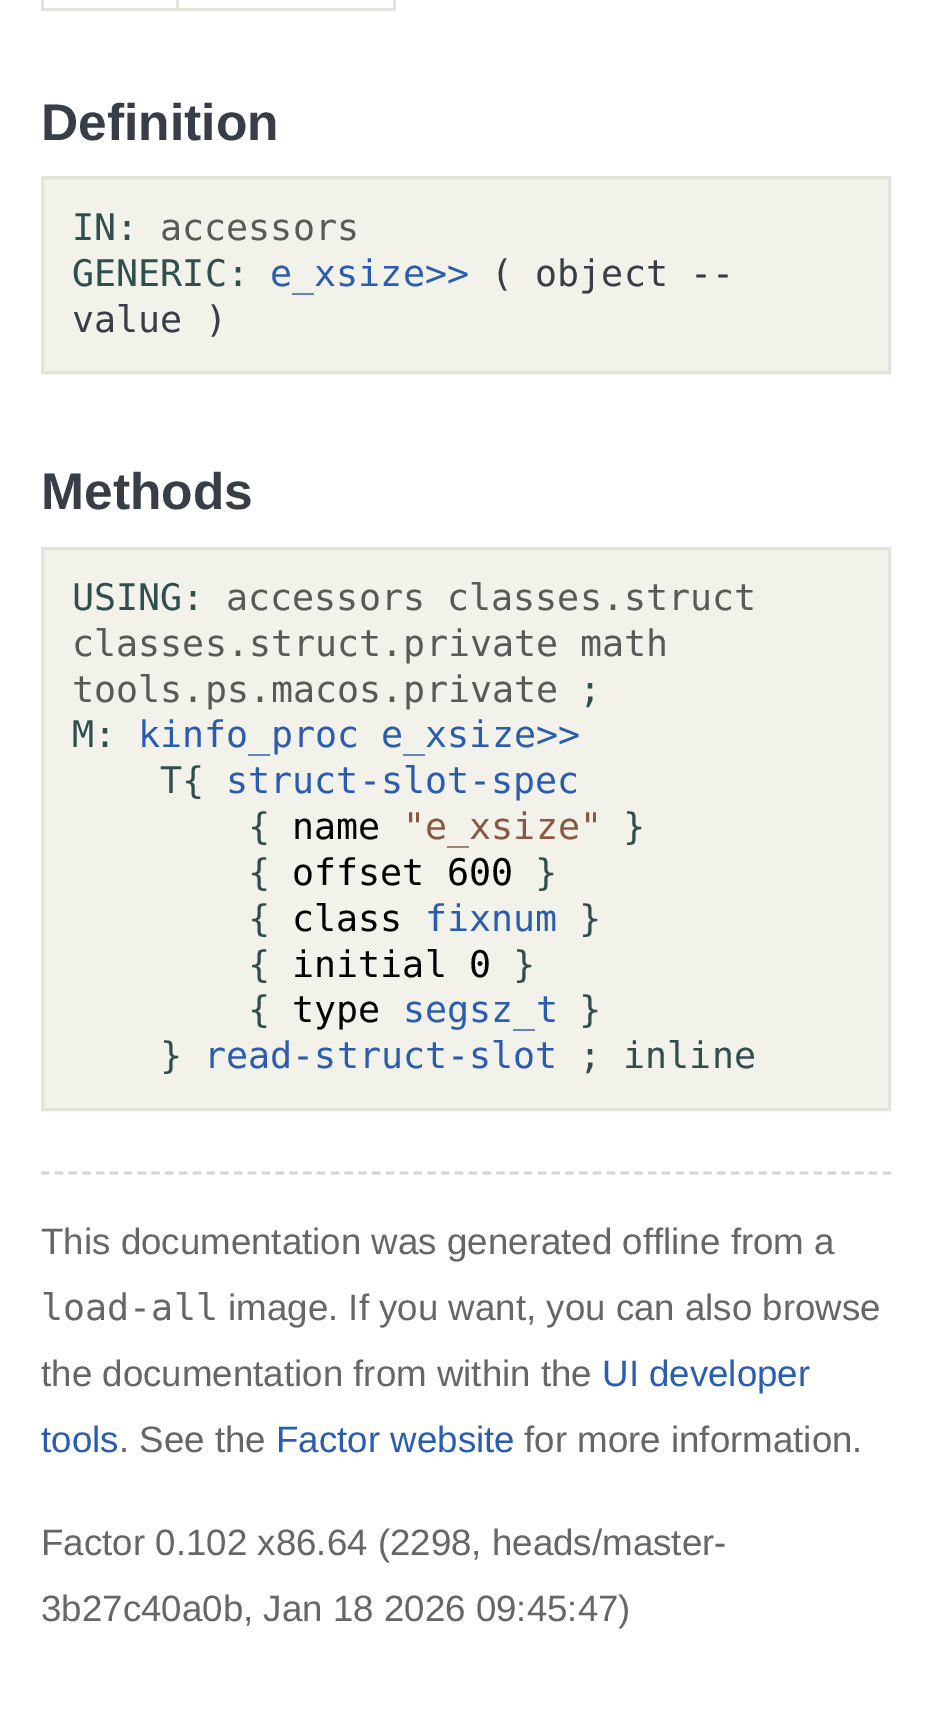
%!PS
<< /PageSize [930 1720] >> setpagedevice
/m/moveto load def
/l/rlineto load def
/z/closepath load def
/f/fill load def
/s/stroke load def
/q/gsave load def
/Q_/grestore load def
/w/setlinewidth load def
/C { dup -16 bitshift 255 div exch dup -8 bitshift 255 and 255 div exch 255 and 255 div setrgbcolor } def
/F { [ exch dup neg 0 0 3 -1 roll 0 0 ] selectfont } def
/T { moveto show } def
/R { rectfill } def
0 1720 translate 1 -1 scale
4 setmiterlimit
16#FFFFFF C
0 0 930 1720 R
16#E3E2DB C
393 0 3 11 R
176 8 220 3 R
176 0 3 11 R
41 8 138 3 R
41 0 3 11 R
/LiberationSans-Bold 51.5 F
16#373E48 C
(Definition) 41 140 T
16#F3F2EA C
42.5 177.5 m 847 0 l 0 195 l -847 0 l z q f Q_
16#E3E2DB C
3 w
s
/DejaVuSansMono-Regular 36.7 F
16#2F4F4F C
(IN:) 72 240 T
16#595959 C
(accessors) 160 240 T
16#2F4F4F C
(GENERIC:) 72 286 T
16#2A5DB0 C
(e_xsize>>) 270 286 T
16#373E48 C
(\( object --) 491 286 T
(value \)) 72 332 T
/LiberationSans-Bold 51.5 F
(Methods) 41 509 T
16#F3F2EA C
42.5 548.5 m 847 0 l 0 561 l -847 0 l z q f Q_
16#E3E2DB C
s
/DejaVuSansMono-Regular 36.7 F
16#2F4F4F C
(USING:) 72 610 T
16#595959 C
(accessors classes.struct) 226 610 T
(classes.struct.private math) 72 656 T
(tools.ps.macos.private) 72 702 T
16#2F4F4F C
(;) 579 702 T
(M:) 72 747 T
16#2A5DB0 C
(kinfo_proc e_xsize>>) 138 747 T
16#2F4F4F C
(T{) 160 793 T
16#2A5DB0 C
(struct-slot-spec) 226 793 T
16#2F4F4F C
({) 248 839 T
16#000000 C
(name) 292 839 T
16#8B5742 C
("e_xsize") 403 839 T
16#2F4F4F C
(}) 623 839 T
({) 248 885 T
16#000000 C
(offset 600) 292 885 T
16#2F4F4F C
(}) 535 885 T
({) 248 931 T
16#000000 C
(class) 292 931 T
16#2A5DB0 C
(fixnum) 425 931 T
16#2F4F4F C
(}) 579 931 T
({) 248 977 T
16#000000 C
(initial 0) 292 977 T
16#2F4F4F C
(}) 513 977 T
({) 248 1022 T
16#000000 C
(type) 292 1022 T
16#2A5DB0 C
(segsz_t) 403 1022 T
16#2F4F4F C
(}) 579 1022 T
(}) 160 1068 T
16#2A5DB0 C
(read-struct-slot) 204 1068 T
16#2F4F4F C
(; inline) 579 1068 T
16#D5D5D5 C
2.8 w
[8.25 5.55] 0 setdash
41 1173 m 850 0 l s
/LiberationSans-Regular 36.7 F
16#666666 C
(This documentation was generated offline from a) 41 1254 T
/DejaVuSansMono-Regular 36.7 F
(load-all) 41 1320 T
/LiberationSans-Regular 36.7 F
(image. If you want, you can also browse) 228 1320 T
(the documentation from within the) 41 1386 T
16#2A5DB0 C
(UI developer) 602 1386 T
(tools) 41 1452 T
16#666666 C
(. See the) 119 1452 T
16#2A5DB0 C
(Factor website) 276 1452 T
16#666666 C
(for more information.) 524 1452 T
(Factor 0.102 x86.64 \(2298, heads/master-) 41 1555 T
(3b27c40a0b, Jan 18 2026 09:45:47\)) 41 1621 T
showpage
